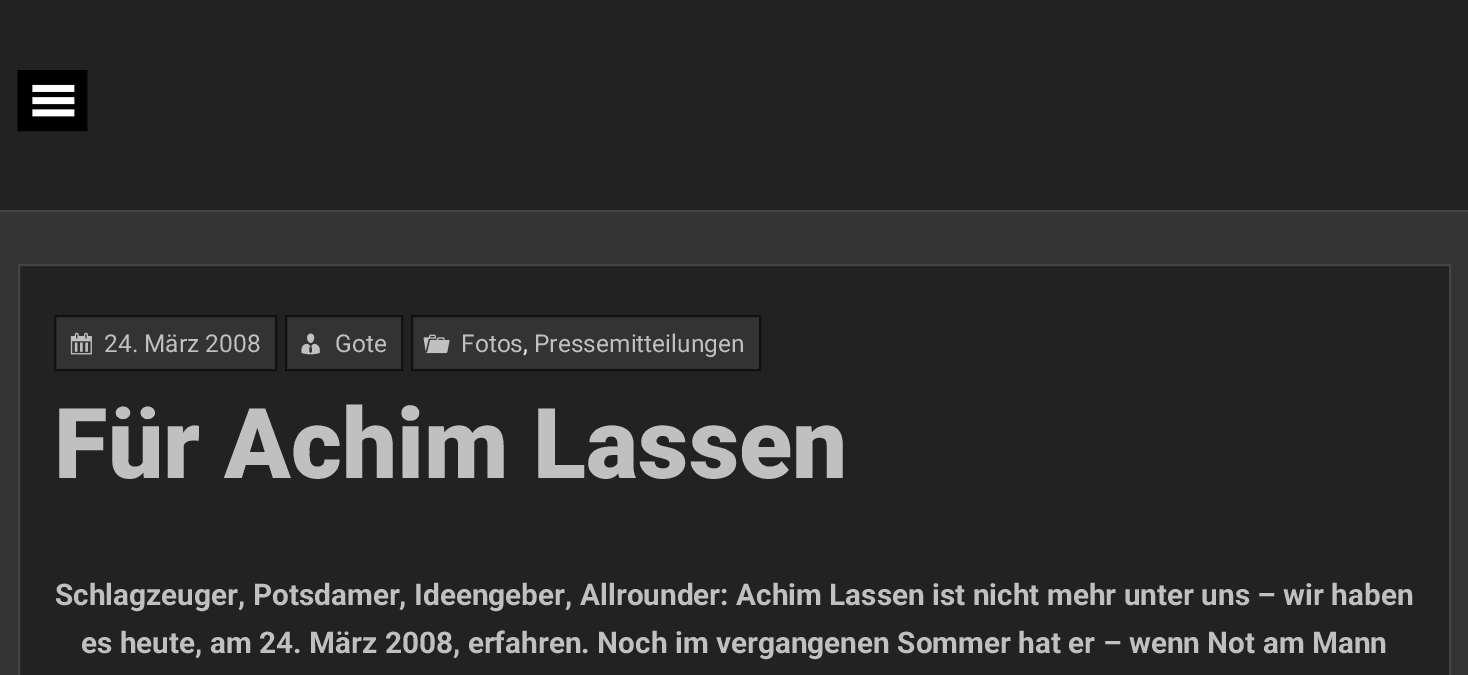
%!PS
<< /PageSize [1468 675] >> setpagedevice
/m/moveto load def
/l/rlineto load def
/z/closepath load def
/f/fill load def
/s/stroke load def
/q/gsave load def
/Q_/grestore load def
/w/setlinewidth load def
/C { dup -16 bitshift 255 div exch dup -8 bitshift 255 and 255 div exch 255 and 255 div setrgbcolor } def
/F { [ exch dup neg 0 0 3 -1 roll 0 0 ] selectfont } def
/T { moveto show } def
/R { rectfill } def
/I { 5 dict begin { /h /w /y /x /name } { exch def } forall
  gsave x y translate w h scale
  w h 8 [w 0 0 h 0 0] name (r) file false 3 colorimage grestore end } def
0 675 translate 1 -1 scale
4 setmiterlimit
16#333333 C
0 0 1468 675 R
16#222222 C
0 0 1468 210 R
16#444444 C
0 210 1468 2 R
(1.rgb) 17 70 71 62 I
16#222222 C
19 265 m 1431 0 l 0 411 l -1431 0 l z q f Q_
16#444444 C
2 w
s
16#333333 C
55 316 m 221 0 l 0 54 l -221 0 l z q f Q_
16#111111 C
s
(2.rgb) 70 332 22 23 I
/Roboto-Regular 24.5 F
16#C0C0C0 C
(24. März 2008) 104 352 T
16#333333 C
286 316 m 116 0 l 0 54 l -116 0 l z q f Q_
16#111111 C
s
(3.rgb) 301 333 19 22 I
16#C0C0C0 C
(Gote) 335 352 T
16#333333 C
412 316 m 348 0 l 0 54 l -348 0 l z q f Q_
16#111111 C
s
(4.rgb) 423 334 27 20 I
16#C0C0C0 C
(Fotos) 461 352 T
16#EEEEEE C
(,) 523 352 T
16#C0C0C0 C
(Pressemitteilungen) 534 352 T
/Roboto-Black 98 F
(Für Achim Lassen) 54 478 T
/Roboto-Bold 29.75 F
(Schlagzeuger, Potsdamer, Ideengeber, Allrounder: Achim Lassen ist nicht mehr unter uns – wir haben) 55 605 T
(es heute, am 24. März 2008, erfahren. Noch im vergangenen Sommer hat er – wenn Not am Mann) 81 653 T
showpage
